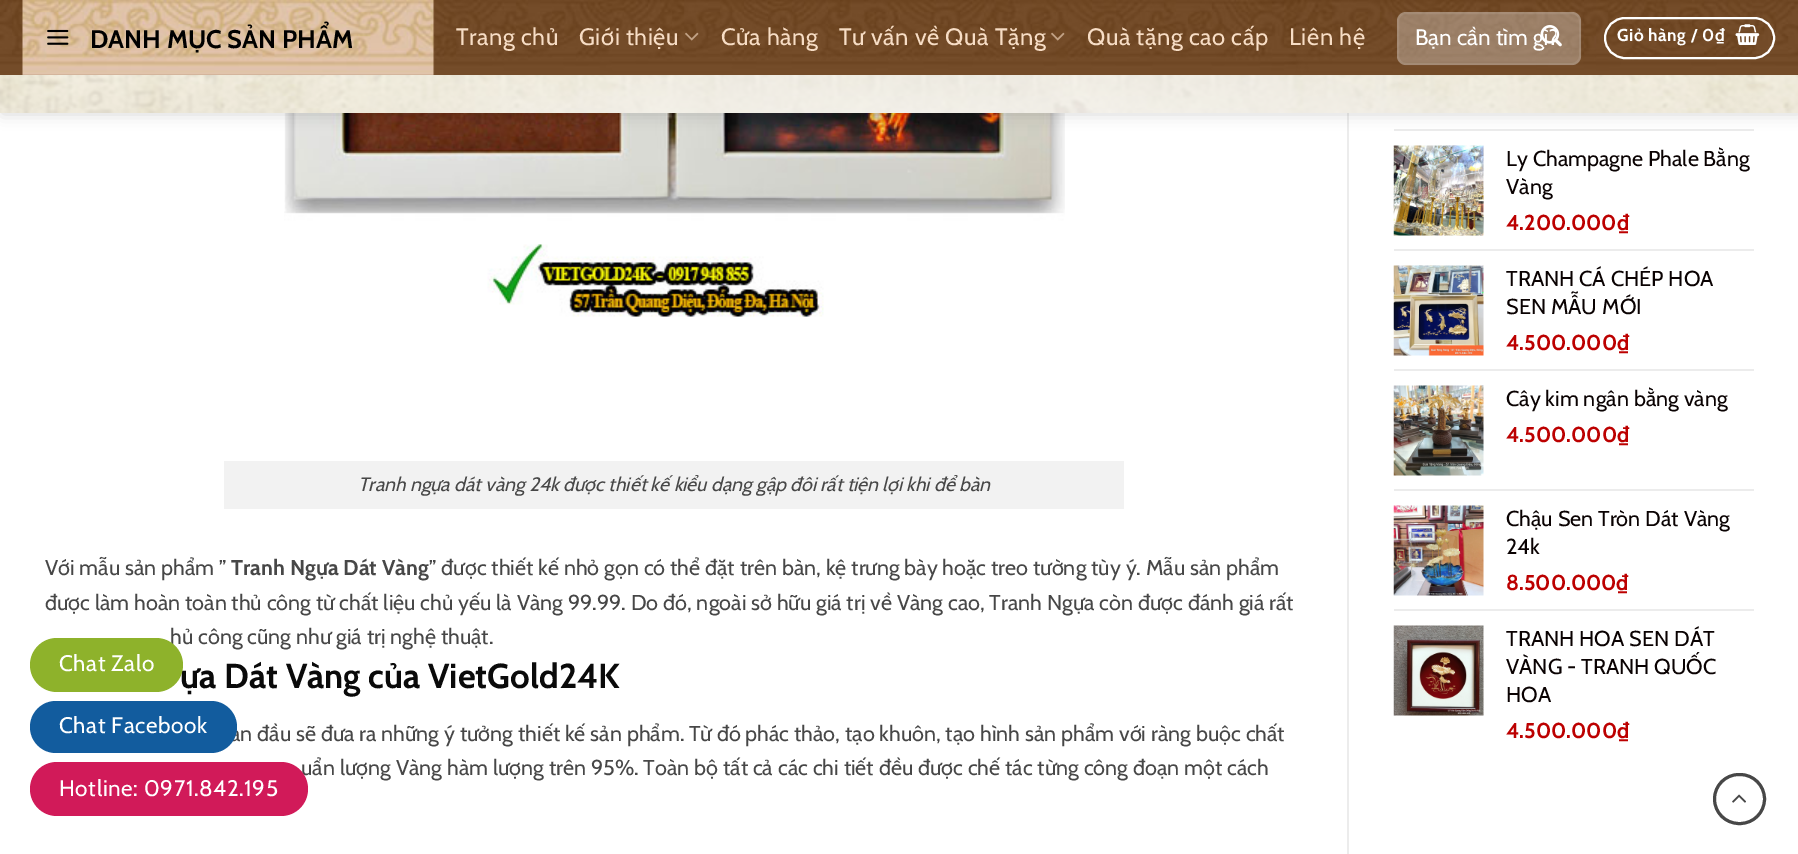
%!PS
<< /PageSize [1798 854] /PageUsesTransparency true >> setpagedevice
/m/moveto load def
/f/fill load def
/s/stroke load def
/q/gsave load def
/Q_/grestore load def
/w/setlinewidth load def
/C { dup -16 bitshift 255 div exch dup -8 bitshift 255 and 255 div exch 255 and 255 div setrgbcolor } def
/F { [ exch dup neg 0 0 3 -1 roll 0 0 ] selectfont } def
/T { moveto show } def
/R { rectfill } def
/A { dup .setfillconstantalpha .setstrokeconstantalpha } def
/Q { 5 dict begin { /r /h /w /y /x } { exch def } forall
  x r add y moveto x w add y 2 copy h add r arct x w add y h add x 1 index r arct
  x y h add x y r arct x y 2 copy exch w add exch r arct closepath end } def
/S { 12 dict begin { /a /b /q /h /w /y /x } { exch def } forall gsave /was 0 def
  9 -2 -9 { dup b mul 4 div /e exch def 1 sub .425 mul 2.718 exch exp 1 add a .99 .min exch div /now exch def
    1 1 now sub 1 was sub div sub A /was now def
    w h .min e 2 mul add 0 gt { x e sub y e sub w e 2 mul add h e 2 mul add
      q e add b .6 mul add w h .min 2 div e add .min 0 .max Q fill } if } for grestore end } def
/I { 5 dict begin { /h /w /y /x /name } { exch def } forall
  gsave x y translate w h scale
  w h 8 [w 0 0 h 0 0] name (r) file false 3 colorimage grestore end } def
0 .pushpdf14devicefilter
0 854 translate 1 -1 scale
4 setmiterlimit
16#FFFFFF C
0 0 1798 854 R
16#ECECEC C
1347 113 2 741 R
(9.rgb) 284 113 781 204 I
1394 129 360 2 R
16#000000 C
2 2 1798 112 0 7.5 .15 S
(1.rgb) 0 0 1798 75 I
(2.rgb) 22 0 413 75 I
(3.rgb) 47 29 22 16 I
/Cabin-Bold 25.5 F
(DANH MỤC SẢN PHẨM) 90 48 T
/Cabin-Regular 23.75 F
16#F7DDC5 C
456 45 m .5 0 (Trang chủ) ashow
579 45 m .5 0 (Giới thiệu) ashow
(4.rgb) 685 32 14 9 I
721 45 m .5 0 (Cửa hàng) ashow
839 45 m .5 0 (Tư vấn về Quà Tặng) ashow
(5.rgb) 1051 32 14 9 I
1087 45 m .5 0 (Quà tặng cao cấp) ashow
1289 45 m .5 0 (Liên hệ) ashow
0.3 A
16#FFFFFF C
1397 12 184 53 9 Q f
0.09 A
2 w
1398 13 182 51 8 Q s
q
1415 24 141 27 rectclip
/Cabin-Regular 22.5 F
1 A
(Bạn cần tìm gì?) 1415 45 T
Q_
1 A
(6.rgb) 1540 25 22 22 I
1605 18 169 40 20 Q s
/Cabin-Bold 17.25 F
1617 41 m .5 0 (Giỏ hàng / 0₫) ashow
(7.rgb) 1735 24 25 21 I
(8.rgb) 0 75 1798 38 I
16#F2F2F2 C
224 461 900 48 R
/Cabin-Italic 19.45 F
16#474747 C
(Tranh ngựa dát vàng 24k được thiết kế kiểu dạng gập đôi rất tiện lợi khi để bàn) 358 491 T
/Cabin-Regular 21.6 F
(Với mẫu sản phẩm ”) 45 575 T
/Cabin-Bold 21.6 F
(Tranh Ngựa Dát Vàng) 231 575 T
/Cabin-Regular 21.6 F
(” được thiết kế nhỏ gọn có thể đặt trên bàn, kệ trưng bày hoặc treo tường tùy ý. Mẫu sản phẩm) 429 575 T
(được làm hoàn toàn thủ công từ chất liệu chủ yếu là Vàng 99.99. Do đó, ngoài sở hữu giá trị về Vàng cao, Tranh Ngựa còn được đánh giá rất) 45 610 T
(hủ công cũng như giá trị nghệ thuật.) 170 644 T
/Cabin-Bold 34.5 F
16#0A0A0A C
(ựa Dát Vàng của VietGold24K) 180 688 T
/Cabin-Regular 21.6 F
16#474747 C
(an đầu sẽ đưa ra những ý tưởng thiết kế sản phẩm. Từ đó phác thảo, tạo khuôn, tạo hình sản phẩm với ràng buộc chất) 230 741 T
(uẩn lượng Vàng hàm lượng trên 95%. Toàn bộ tất cả các chi tiết đều được chế tác từng công đoạn một cách) 301 775 T
(10.rgb) 1393 145 91 91 I
16#0A0202 C
(Ly Champagne Phale Bằng) 1506 166 T
(Vàng) 1506 194 T
/Cabin-Bold 21.6 F
16#BC0000 C
(4.200.000₫) 1506 230 T
16#ECECEC C
1394 249 360 2 R
(11.rgb) 1393 265 91 91 I
/Cabin-Regular 21.6 F
16#0A0202 C
(TRANH CÁ CHÉP HOA) 1506 286 T
(SEN MẪU MỚI) 1506 314 T
/Cabin-Bold 21.6 F
16#BC0000 C
(4.500.000₫) 1506 350 T
16#ECECEC C
1394 369 360 2 R
(12.rgb) 1393 385 91 91 I
/Cabin-Regular 21.6 F
16#0A0202 C
(Cây kim ngân bằng vàng) 1506 406 T
/Cabin-Bold 21.6 F
16#BC0000 C
(4.500.000₫) 1506 442 T
16#ECECEC C
1394 489 360 2 R
(13.rgb) 1393 505 91 91 I
/Cabin-Regular 21.6 F
16#0A0202 C
(Chậu Sen Tròn Dát Vàng) 1506 526 T
(24k) 1506 554 T
/Cabin-Bold 21.6 F
16#BC0000 C
(8.500.000₫) 1506 590 T
16#ECECEC C
1394 609 360 2 R
(14.rgb) 1393 625 91 91 I
/Cabin-Regular 21.6 F
16#0A0202 C
(TRANH HOA SEN DÁT) 1506 646 T
(VÀNG - TRANH QUỐC) 1506 674 T
(HOA) 1506 702 T
/Cabin-Bold 21.6 F
16#BC0000 C
(4.500.000₫) 1506 738 T
16#474747 C
3 w
1714.5 774.5 50 49 24.5 Q s
(15.rgb) 1732 794 14 9 I
16#8EB22B C
30 638 153 54 27 Q f
/Cabin-Regular 22.5 F
16#FFFFFF C
59 671 m .6 0 (Chat Zalo) ashow
16#125C9E C
30 701 207 52 26 Q f
16#FFFFFF C
59 733 m .6 0 (Chat Facebook) ashow
16#D11A59 C
30 762 278 54 27 Q f
16#FFFFFF C
59 796 m .6 0 (Hotline: 0971.842.195) ashow
.poppdf14devicefilter showpage
